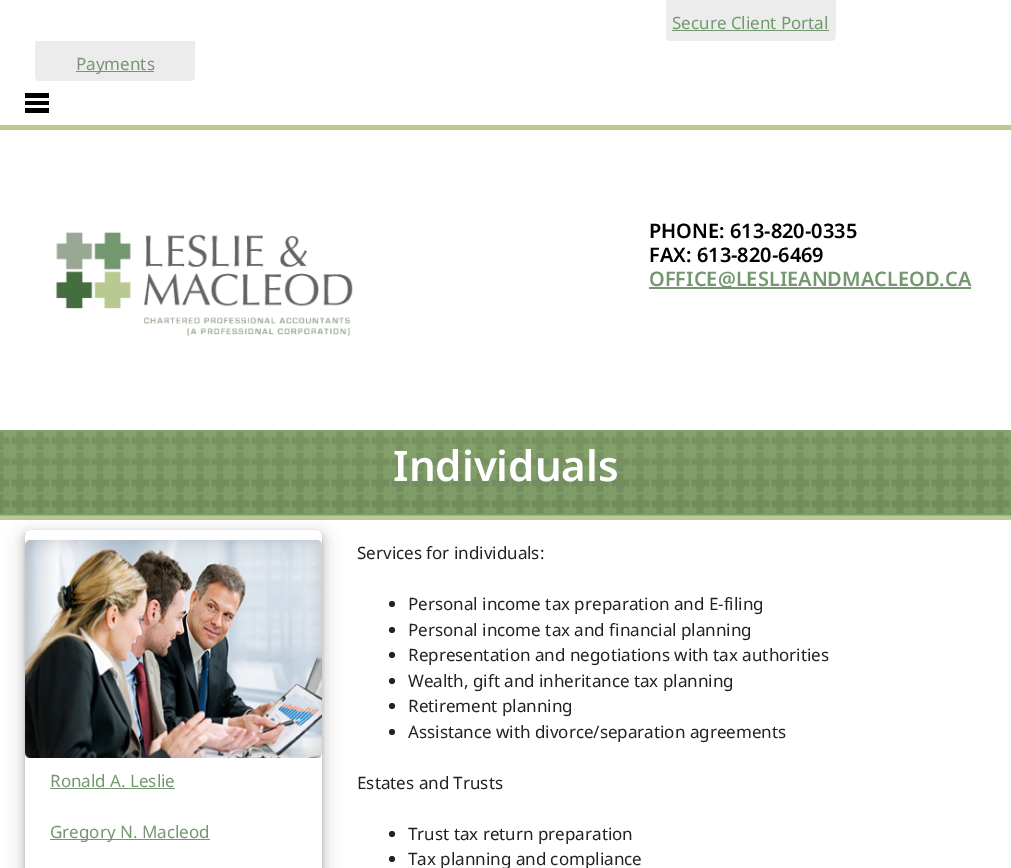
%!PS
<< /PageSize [1011 868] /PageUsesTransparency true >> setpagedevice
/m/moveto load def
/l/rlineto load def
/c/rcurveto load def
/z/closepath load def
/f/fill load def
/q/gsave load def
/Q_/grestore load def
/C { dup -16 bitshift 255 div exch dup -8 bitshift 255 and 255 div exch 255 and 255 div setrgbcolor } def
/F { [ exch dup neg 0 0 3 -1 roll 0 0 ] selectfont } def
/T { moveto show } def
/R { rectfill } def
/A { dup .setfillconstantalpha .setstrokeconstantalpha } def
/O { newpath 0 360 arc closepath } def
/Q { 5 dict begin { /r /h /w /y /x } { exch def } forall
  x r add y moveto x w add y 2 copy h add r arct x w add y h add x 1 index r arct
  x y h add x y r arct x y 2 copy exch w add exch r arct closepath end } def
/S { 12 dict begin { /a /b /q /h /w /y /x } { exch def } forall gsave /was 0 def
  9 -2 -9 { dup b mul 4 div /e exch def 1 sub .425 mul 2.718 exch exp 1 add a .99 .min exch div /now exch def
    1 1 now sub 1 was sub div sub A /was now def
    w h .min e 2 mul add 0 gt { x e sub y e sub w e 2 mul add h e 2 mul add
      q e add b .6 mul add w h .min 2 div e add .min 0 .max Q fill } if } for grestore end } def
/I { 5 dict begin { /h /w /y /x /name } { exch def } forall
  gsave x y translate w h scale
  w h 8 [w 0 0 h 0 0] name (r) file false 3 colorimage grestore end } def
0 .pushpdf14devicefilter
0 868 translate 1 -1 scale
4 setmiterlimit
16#FFFFFF C
0 0 1011 868 R
16#ECECEC C
666 0 m 170 0 l 0 36 l 0 3 -2 5 -5 5 c -160 0 l -3 0 -5 -2 -5 -5 c z f
/NotoSans-Regular 17 F
16#73976F C
(Secure Client Portal) 672 29 T
672 30 157 1 R
16#ECECEC C
35 41 m 160 0 l 0 35 l 0 3 -2 5 -5 5 c -150 0 l -3 0 -5 -2 -5 -5 c z f
16#73976F C
76 71 78 1 R
(Payments) 76 70 T
16#000000 C
25 93 24 5 R
25 101 24 4 R
25 108 24 5 R
16#B8C992 C
0 125 1011 5 R
(1.rgb) 56 232 297 104 I
/NotoSans-SemiBold 20 F
16#000000 C
(PHONE: 613-820-0335) 649 238 T
(FAX: 613-820-6469) 649 262 T
16#73976F C
649 287 322 2 R
(OFFICE@LESLIEANDMACLEOD.CA) 649 286 T
(2.rgb) 0 430 1011 90 I
/NotoSans-SemiBold 42 F
16#FFFFFF C
(Individuals) 393 481 T
q
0 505 m 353 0 l 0 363 l -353 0 l z 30 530 m 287 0 l 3 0 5 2 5 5 c 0 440 l 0 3 -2 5 -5 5 c -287 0 l -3 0 -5 -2 -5 -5 c 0 -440 l 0 -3 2 -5 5 -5 c z eoclip newpath
16#000000 C
25 536 297 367 5 10 .19 S
Q_
q
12 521 m 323 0 l 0 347 l -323 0 l z 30 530 m 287 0 l 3 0 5 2 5 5 c 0 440 l 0 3 -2 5 -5 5 c -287 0 l -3 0 -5 -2 -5 -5 c 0 -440 l 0 -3 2 -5 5 -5 c z eoclip newpath
16#000000 C
25 534 297 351 5 4 .2 S
Q_
(3.rgb) 25 540 297 218 I
/NotoSans-Regular 17 F
16#73976F C
(Ronald A. Leslie) 50 787 T
50 788 125 1 R
50 839 160 1 R
(Gregory N. Macleod) 50 838 T
16#222222 C
(Services for individuals:) 357 559 T
392 604 3 O f
(Personal income tax preparation and E-filing) 408 610 T
392 630 3 O f
(Personal income tax and financial planning) 408 636 T
392 655 3 O f
(Representation and negotiations with tax authorities) 408 661 T
392 681 3 O f
(Wealth, gift and inheritance tax planning) 408 687 T
392 706 3 O f
(Retirement planning) 408 712 T
392 732 3 O f
(Assistance with divorce/separation agreements) 408 738 T
(Estates and Trusts) 357 789 T
392 834 3 O f
(Trust tax return preparation) 408 840 T
392 859 3 O f
(Tax planning and compliance) 408 865 T
.poppdf14devicefilter showpage
